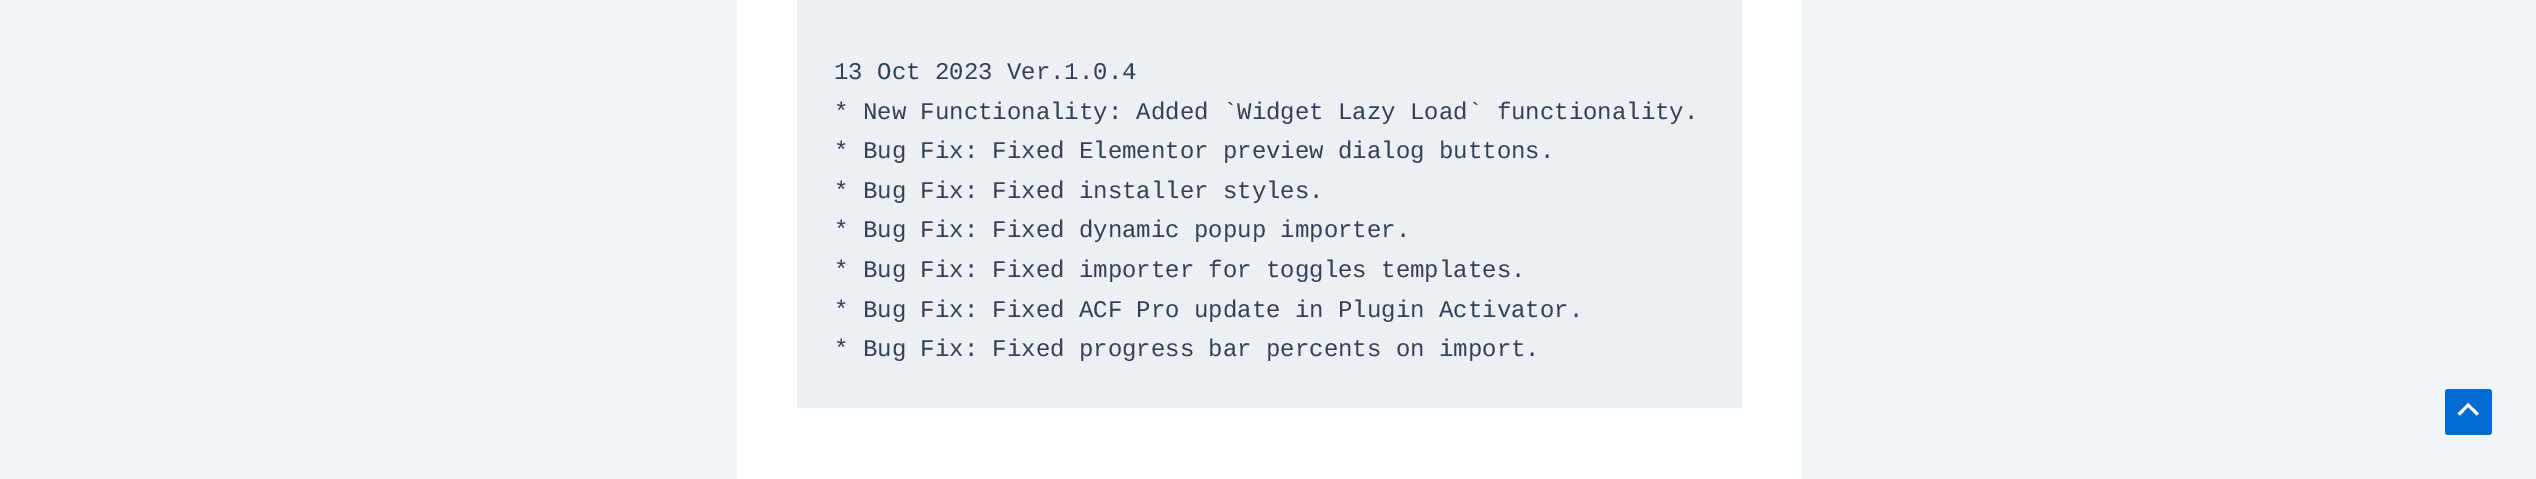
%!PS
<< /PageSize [2536 479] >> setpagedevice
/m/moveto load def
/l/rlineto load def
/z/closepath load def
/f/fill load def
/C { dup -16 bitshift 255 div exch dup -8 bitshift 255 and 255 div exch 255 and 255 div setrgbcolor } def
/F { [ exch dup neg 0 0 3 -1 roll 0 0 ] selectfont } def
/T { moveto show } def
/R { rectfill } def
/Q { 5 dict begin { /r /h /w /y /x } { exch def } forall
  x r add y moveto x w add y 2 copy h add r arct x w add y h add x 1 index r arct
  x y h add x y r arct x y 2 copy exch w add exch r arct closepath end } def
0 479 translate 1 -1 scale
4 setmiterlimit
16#F0F5FA C
0 0 2536 479 R
16#FFFFFF C
737 0 1065 479 R
16#ECEFF3 C
797 0 945 408 R
/LiberationMono-Regular 24 F
16#334155 C
(13 Oct 2023 Ver.1.0.4) 834 79 T
(* New Functionality: Added `Widget Lazy Load` functionality.) 834 119 T
(* Bug Fix: Fixed Elementor preview dialog buttons.) 834 158 T
(* Bug Fix: Fixed installer styles.) 834 198 T
(* Bug Fix: Fixed dynamic popup importer.) 834 237 T
(* Bug Fix: Fixed importer for toggles templates.) 834 277 T
(* Bug Fix: Fixed ACF Pro update in Plugin Activator.) 834 317 T
(* Bug Fix: Fixed progress bar percents on import.) 834 356 T
16#046BD2 C
2445 389 47 46 3 Q f
16#FFFFFF C
2479 413.5 m -11 -10.5 l -10.5 10.5 l 2.5 2 l 8 -8.5 l 8.5 8.5 l z f
showpage
